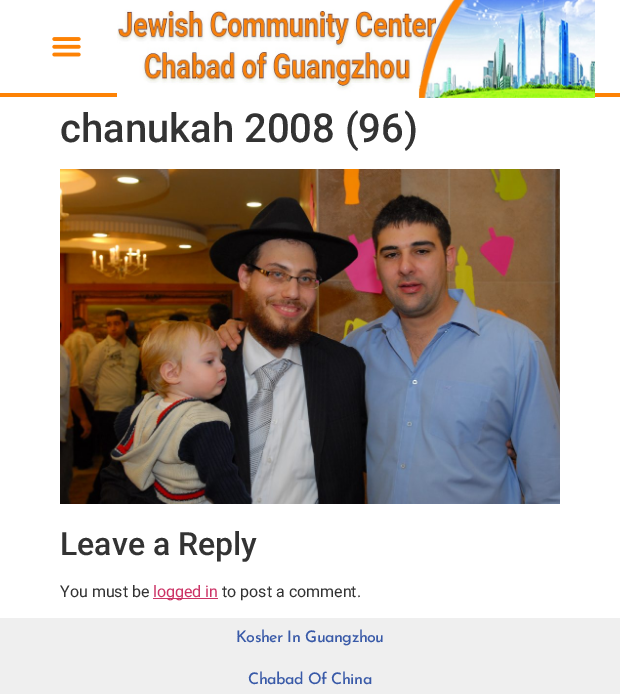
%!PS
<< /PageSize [620 694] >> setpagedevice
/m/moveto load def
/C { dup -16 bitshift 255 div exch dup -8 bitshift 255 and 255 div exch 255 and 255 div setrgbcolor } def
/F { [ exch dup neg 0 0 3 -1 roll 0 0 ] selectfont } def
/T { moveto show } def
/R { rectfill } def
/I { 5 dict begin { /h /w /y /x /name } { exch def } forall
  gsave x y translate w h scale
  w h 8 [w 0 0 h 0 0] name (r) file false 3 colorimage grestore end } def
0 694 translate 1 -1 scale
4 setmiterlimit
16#FFFFFF C
0 0 620 694 R
16#FD8204 C
0 93 620 4 R
(1.rgb) 52 37 29 20 I
(2.rgb) 117 0 478 98 I
/Roboto-Medium 40 F
16#333333 C
(chanukah 2008 \(96\)) 60 142 T
(3.rgb) 60 169 500 335 I
/Roboto-Medium 32 F
(Leave a Reply) 60 555 T
/Roboto-Regular 16 F
(You must be) 60 597 T
16#CC3366 C
153 598 65 1 R
(logged in) 153 597 T
16#333333 C
(to post a comment.) 222 597 T
16#EFEFEF C
0 618 620 76 R
/JosefinSans-Medium 16 F
16#395AA8 C
236 642 m -.5 0 (Kosher In Guangzhou) ashow
248 684 m -.5 0 (Chabad Of China) ashow
showpage
